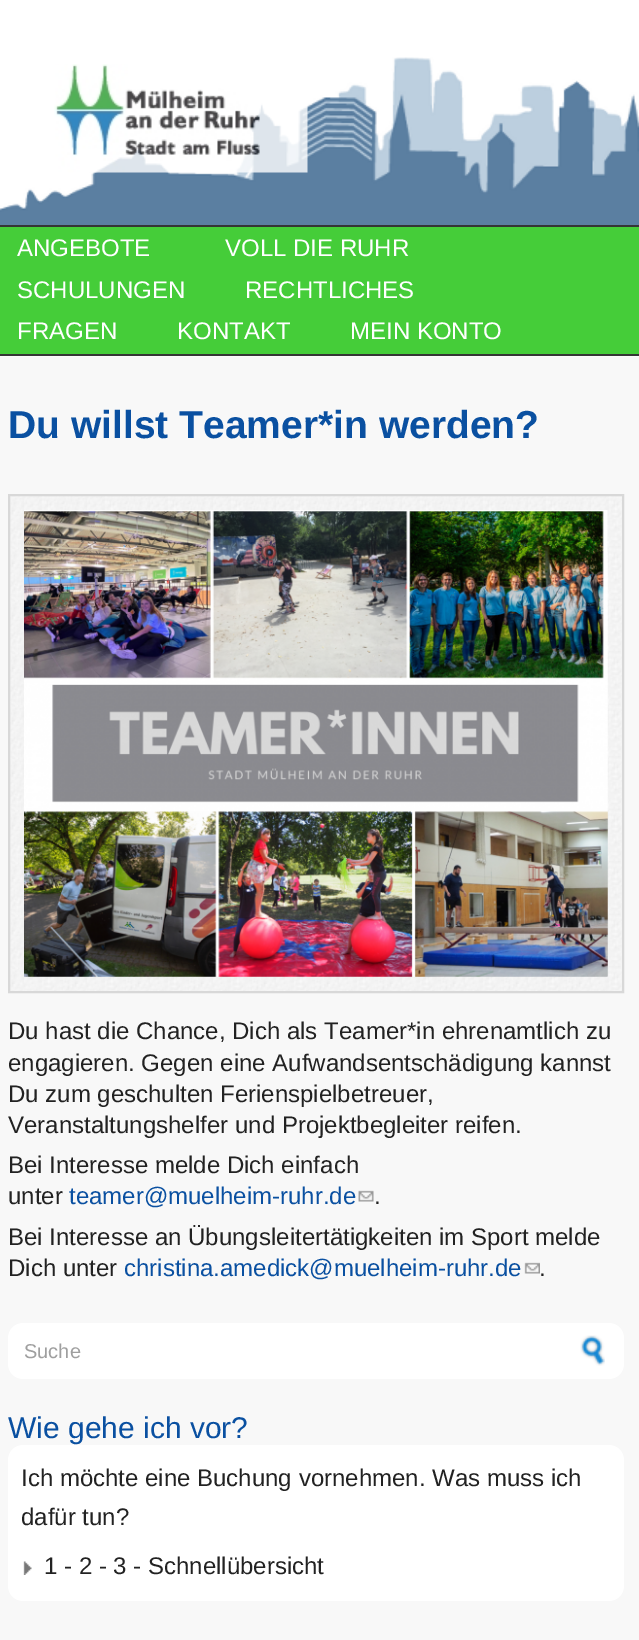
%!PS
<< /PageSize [639 1640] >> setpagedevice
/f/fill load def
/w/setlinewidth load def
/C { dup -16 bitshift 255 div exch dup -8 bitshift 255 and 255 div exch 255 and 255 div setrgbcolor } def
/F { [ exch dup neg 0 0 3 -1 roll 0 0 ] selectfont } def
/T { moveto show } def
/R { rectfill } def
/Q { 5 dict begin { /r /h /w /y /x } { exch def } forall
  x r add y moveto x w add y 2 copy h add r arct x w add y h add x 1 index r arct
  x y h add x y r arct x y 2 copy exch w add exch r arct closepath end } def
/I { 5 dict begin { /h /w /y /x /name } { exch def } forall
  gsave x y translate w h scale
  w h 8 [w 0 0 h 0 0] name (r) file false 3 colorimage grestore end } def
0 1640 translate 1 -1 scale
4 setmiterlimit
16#FFFFFF C
0 0 639 1640 R
(1.rgb) 0 57 639 168 I
(2.rgb) 54 64 254 109 I
16#45CD39 C
0 227 639 127 R
16#353535 C
0 225 639 2 R
0 354 639 2 R
/LiberationSans-Regular 24 F
16#FFFFFF C
(ANGEBOTE) 17 256 T
(VOLL DIE RUHR) 225 256 T
(SCHULUNGEN) 17 298 T
(RECHTLICHES) 245 298 T
(FRAGEN) 17 339 T
(KONTAKT) 177 339 T
(MEIN KONTO) 350 339 T
16#FCFCFC C
0 356 639 1 R
16#F8F8F8 C
0 357 639 1283 R
/LiberationSans-Bold 39 F
16#0A50A1 C
(Du willst Teamer*in werden?) 8 438 T
(3.rgb) 10 496 612 495 I
16#D8D8D8 C
2 w
9 495 614 497 rectstroke
(4.rgb) 24 552 584 425 I
/LiberationSans-Regular 24 F
16#222222 C
(Du hast die Chance, Dich als Teamer*in ehrenamtlich zu) 8 1039 T
(engagieren. Gegen eine Aufwandsentschädigung kannst) 8 1071 T
(Du zum geschulten Ferienspielbetreuer,) 8 1102 T
(Veranstaltungshelfer und Projektbegleiter reifen.) 8 1133 T
(Bei Interesse melde Dich einfach) 8 1173 T
(unter) 8 1204 T
16#0A50A1 C
(teamer@muelheim-ruhr.de) 69 1204 T
(5.rgb) 358 1190 16 12 I
16#222222 C
(.) 374 1204 T
(Bei Interesse an Übungsleitertätigkeiten im Sport melde) 8 1245 T
(Dich unter) 8 1276 T
16#0A50A1 C
(christina.amedick@muelheim-ruhr.de) 124 1276 T
(6.rgb) 524 1262 16 12 I
16#222222 C
(.) 539 1276 T
16#FFFFFF C
8 1323 616 56 15 Q f
/LiberationSans-Regular 20 F
16#9F9F9F C
(Suche) 24 1358 T
(7.rgb) 580 1335 25 31 I
/LiberationSans-Regular 30 F
16#0A50A1 C
(Wie gehe ich vor?) 8 1438 T
16#FFFFFF C
8 1445 616 156 15 Q f
/LiberationSans-Regular 24 F
16#222222 C
(Ich möchte eine Buchung vornehmen. Was muss ich) 21 1486 T
(dafür tun?) 21 1525 T
(8.rgb) 23 1561 9 14 I
(1 - 2 - 3 - Schnellübersicht) 44 1574 T
showpage
